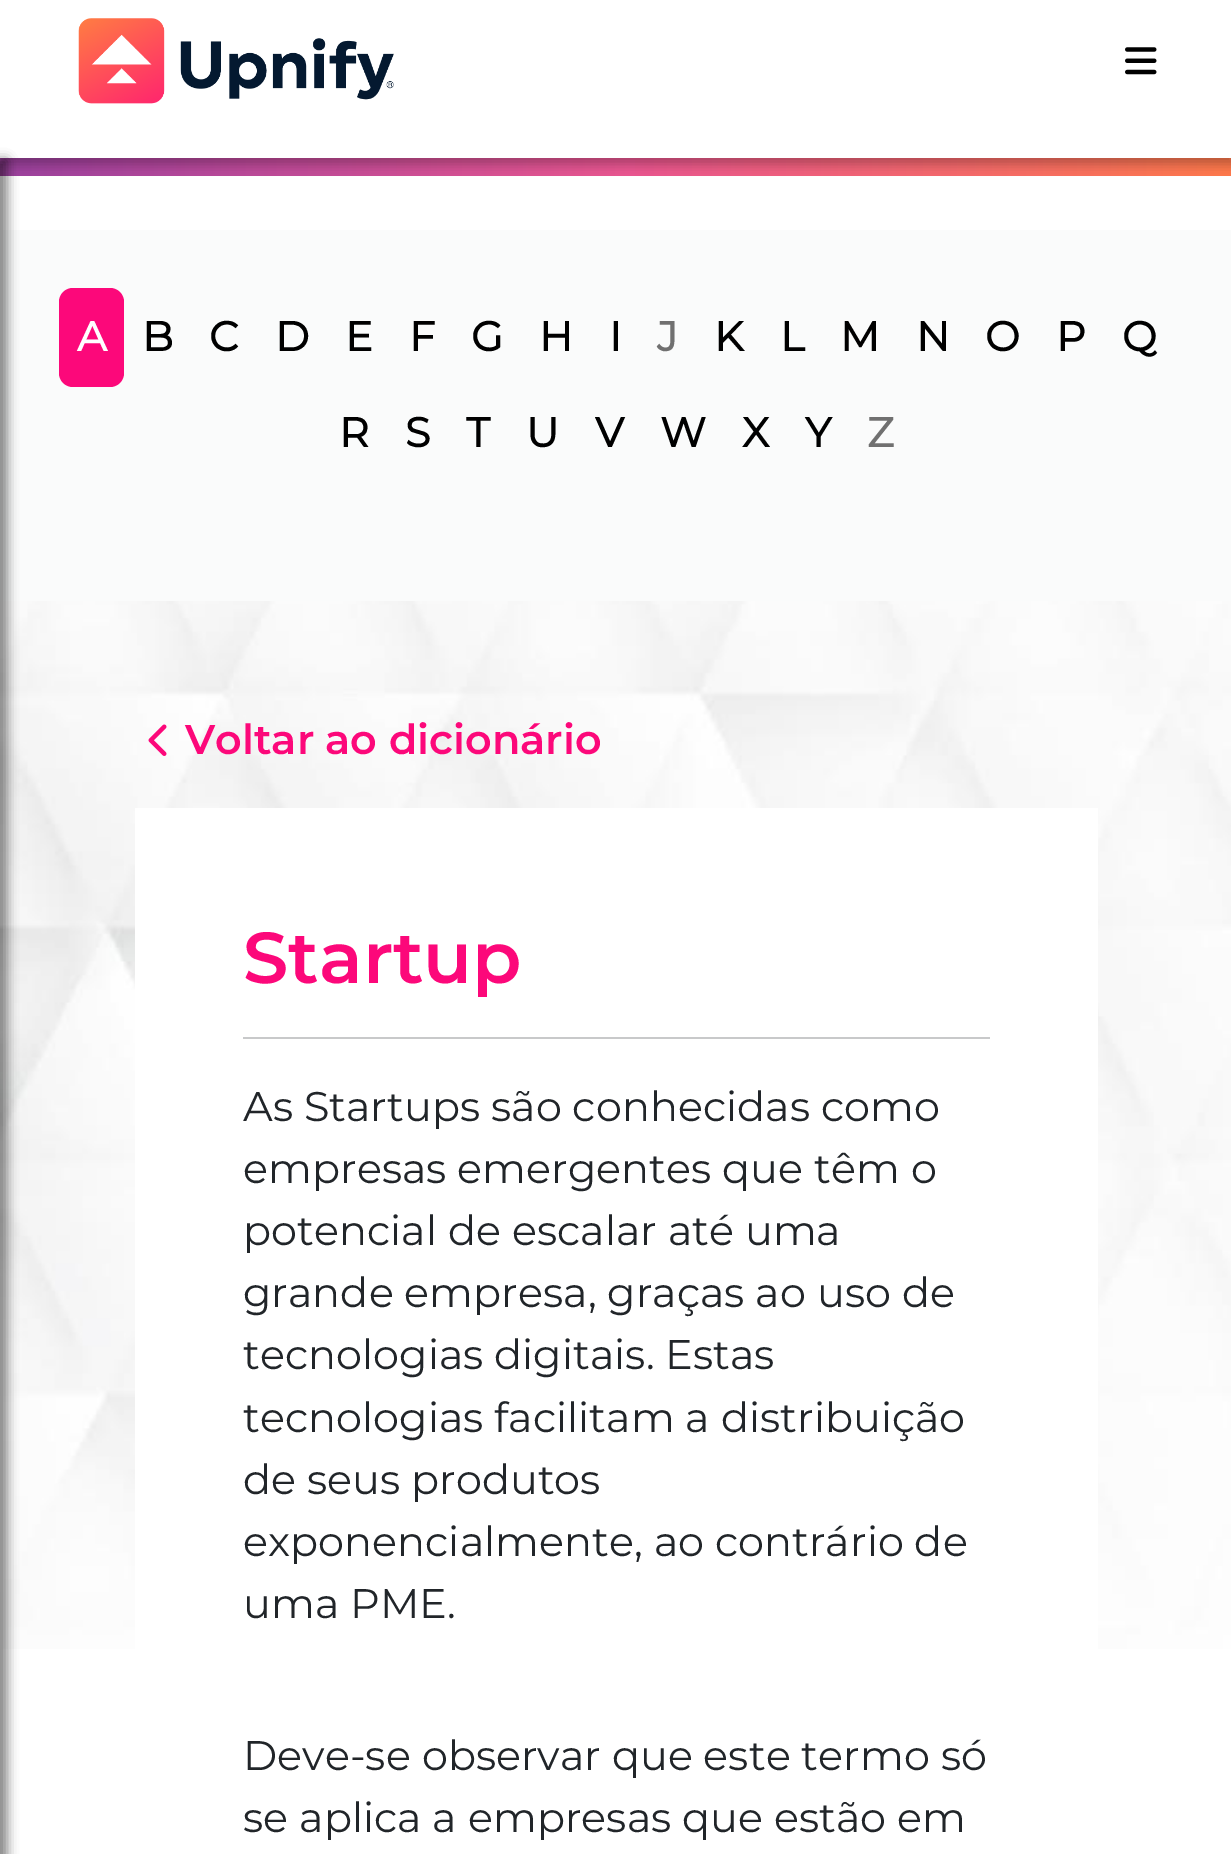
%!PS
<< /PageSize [1231 1854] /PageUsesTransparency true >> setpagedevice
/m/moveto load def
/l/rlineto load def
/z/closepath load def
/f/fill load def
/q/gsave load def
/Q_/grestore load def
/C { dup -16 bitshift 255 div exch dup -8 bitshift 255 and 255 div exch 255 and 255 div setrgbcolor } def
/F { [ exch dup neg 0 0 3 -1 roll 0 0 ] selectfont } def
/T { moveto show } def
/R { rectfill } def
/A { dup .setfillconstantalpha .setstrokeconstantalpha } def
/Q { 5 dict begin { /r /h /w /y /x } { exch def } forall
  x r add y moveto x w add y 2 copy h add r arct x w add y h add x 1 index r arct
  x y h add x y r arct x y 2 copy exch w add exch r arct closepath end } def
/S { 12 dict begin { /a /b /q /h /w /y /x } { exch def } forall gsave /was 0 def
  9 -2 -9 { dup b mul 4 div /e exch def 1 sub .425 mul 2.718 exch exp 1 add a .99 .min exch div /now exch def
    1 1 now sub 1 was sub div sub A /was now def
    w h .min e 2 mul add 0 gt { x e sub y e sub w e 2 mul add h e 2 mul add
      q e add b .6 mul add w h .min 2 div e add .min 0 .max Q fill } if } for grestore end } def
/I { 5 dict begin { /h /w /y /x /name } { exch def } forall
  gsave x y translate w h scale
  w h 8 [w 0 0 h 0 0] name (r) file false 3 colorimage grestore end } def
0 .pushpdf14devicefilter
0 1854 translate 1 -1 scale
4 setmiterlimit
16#FFFFFF C
0 0 1231 1854 R
(1.rgb) 0 601 1231 1048 I
q 0 158 m 1231 0 l 0 18 l -1231 0 l z clip newpath
<< /ShadingType 2 /ColorSpace /DeviceRGB /Coords [0 88 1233 88] /Extend [true true] /Function << /FunctionType 3 /Domain [0 1] /Functions [<< /FunctionType 2 /Domain [0 1] /C0 [.608 .259 .62] /C1 [.918 .337 .565] /N 1 >> << /FunctionType 2 /Domain [0 1] /C0 [.918 .337 .565] /C1 [1 .475 .298] /N 1 >>] /Bounds [.51] /Encode [0 1 0 1] >> >> shfill Q_
16#000000 C
0 7 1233 157 0 5.5 .27 S
16#FFFFFF C
0 0 1231 158 R
16#FAFBFB C
0 230 1231 371 R
16#000000 C
-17 160 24 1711 0 5.5 .27 S
-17 160 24 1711 0 5.5 .27 S
(2.rgb) 78 18 316 86 I
(3.rgb) 1125 47 32 28 I
16#FC087A C
59 288 65 99 14 Q f
/Montserrat-Bold 41.4 F
16#FFFFFF C
(A) 77 351 T
16#000000 C
(B) 142 351 T
(C) 209 351 T
(D) 275 351 T
(E) 345 351 T
(F) 409 351 T
(G) 471 351 T
(H) 539 351 T
(I) 609 351 T
16#707070 C
(J) 657 351 T
16#000000 C
(K) 714 351 T
(L) 780 351 T
(M) 840 351 T
(N) 916 351 T
(O) 985 351 T
(P) 1056 351 T
(Q) 1122 351 T
(R) 339 447 T
(S) 405 447 T
(T) 466 447 T
(U) 526 447 T
(V) 595 447 T
(W) 660 447 T
(X) 742 447 T
(Y) 805 447 T
16#707070 C
(Z) 867 447 T
(4.rgb) 148 724 19 32 I
/Montserrat-SemiBold 41.4 F
16#FC087A C
(Voltar ao dicionário) 185 754 T
16#FFFFFF C
135 808 963 841 R
/Montserrat-SemiBold 72 F
16#FC087A C
(Startup) 243 983 T
16#C8C9CA C
243 1037 747 2 R
/Montserrat-Regular 41.4 F
16#212529 C
(As Startups são conhecidas como) 243 1121 T
(empresas emergentes que têm o) 243 1183 T
(potencial de escalar até uma) 243 1245 T
(grande empresa, graças ao uso de) 243 1307 T
(tecnologias digitais. Estas) 243 1369 T
(tecnologias facilitam a distribuição) 243 1432 T
(de seus produtos) 243 1494 T
(exponencialmente, ao contrário de) 243 1556 T
(uma PME.) 243 1618 T
(Deve-se observar que este termo só) 243 1770 T
(se aplica a empresas que estão em) 243 1832 T
.poppdf14devicefilter showpage
